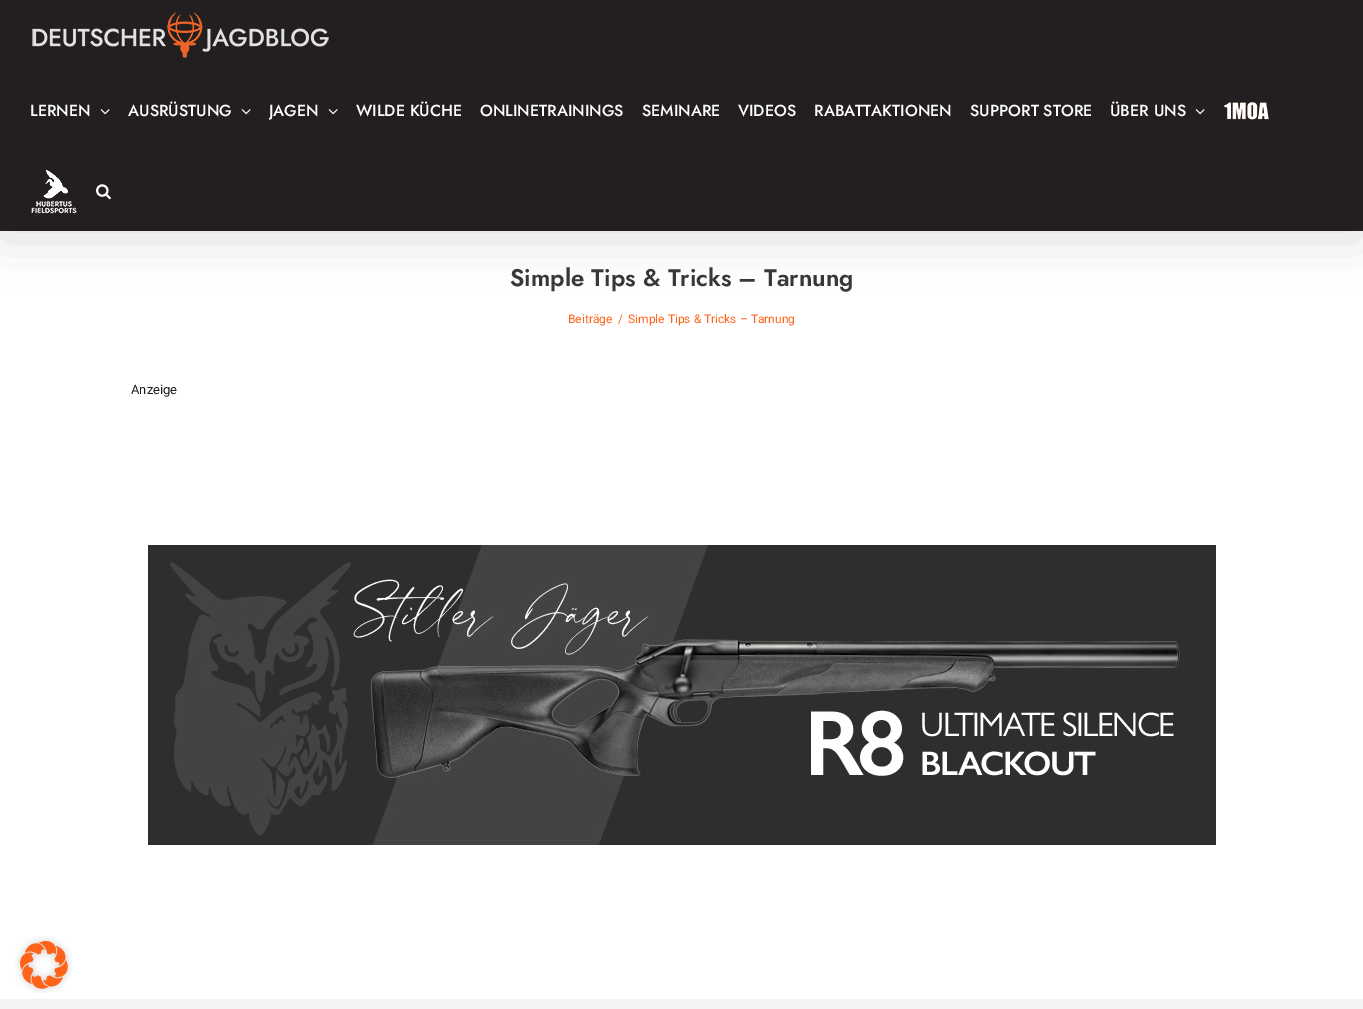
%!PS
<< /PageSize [1363 1009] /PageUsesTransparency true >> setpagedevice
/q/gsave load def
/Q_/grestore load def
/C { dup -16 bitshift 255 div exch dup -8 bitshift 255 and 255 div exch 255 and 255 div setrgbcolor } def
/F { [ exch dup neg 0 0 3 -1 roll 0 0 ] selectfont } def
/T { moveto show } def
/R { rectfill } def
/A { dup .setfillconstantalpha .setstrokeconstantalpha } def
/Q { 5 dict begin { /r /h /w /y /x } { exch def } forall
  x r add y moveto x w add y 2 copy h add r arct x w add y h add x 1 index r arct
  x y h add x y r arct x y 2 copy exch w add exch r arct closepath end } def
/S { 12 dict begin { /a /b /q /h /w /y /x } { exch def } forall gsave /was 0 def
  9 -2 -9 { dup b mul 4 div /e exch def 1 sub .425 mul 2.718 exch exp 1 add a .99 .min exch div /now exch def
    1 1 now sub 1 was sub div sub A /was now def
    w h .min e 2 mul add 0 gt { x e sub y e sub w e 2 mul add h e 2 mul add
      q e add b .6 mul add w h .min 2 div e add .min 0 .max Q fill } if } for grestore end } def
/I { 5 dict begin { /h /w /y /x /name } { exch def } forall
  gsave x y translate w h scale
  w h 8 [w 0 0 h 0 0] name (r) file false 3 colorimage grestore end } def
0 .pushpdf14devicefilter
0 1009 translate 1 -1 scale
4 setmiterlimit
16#FFFFFF C
0 0 1363 1009 R
16#000000 C
2 12 1359 227 0 25 .14 S
16#231F20 C
0 0 1363 231 R
(1.rgb) 32 12 297 46 I
/Jost-Medium 16 F
16#FFFFFF C
(LERNEN) 30 116 T
(2.rgb) 100 109 10 6 I
(AUSRÜSTUNG) 128 116 T
(2.rgb) 241 109 10 6 I
q
269 71 87 80 rectclip
(JAGEN) 269 116 T
Q_
(2.rgb) 328 109 10 6 I
(WILDE KÜCHE) 356 116 T
(ONLINETRAININGS) 480 116 T
(SEMINARE) 642 116 T
(VIDEOS) 738 116 T
(RABATTAKTIONEN) 814 116 T
(SUPPORT STORE) 970 116 T
(ÜBER UNS) 1110 116 T
(2.rgb) 1195 109 10 6 I
(3.rgb) 1224 102 45 18 I
(4.rgb) 31 169 46 45 I
(5.rgb) 96 184 15 16 I
/Jost-SemiBold 24 F
16#363839 C
(Simple Tips & Tricks – Tarnung) 510 286 T
/Roboto-Regular 12 F
16#FF6319 C
(Beiträge) 568 323 T
(/) 618 323 T
(Simple Tips & Tricks – Tarnung) 628 323 T
/Roboto-Regular 13 F
16#231F20 C
(Anzeige) 131 394 T
(6.rgb) 148 545 1068 300 I
16#F2F3F5 C
0 999 1363 10 R
(7.rgb) 15 936 57 57 I
.poppdf14devicefilter showpage
